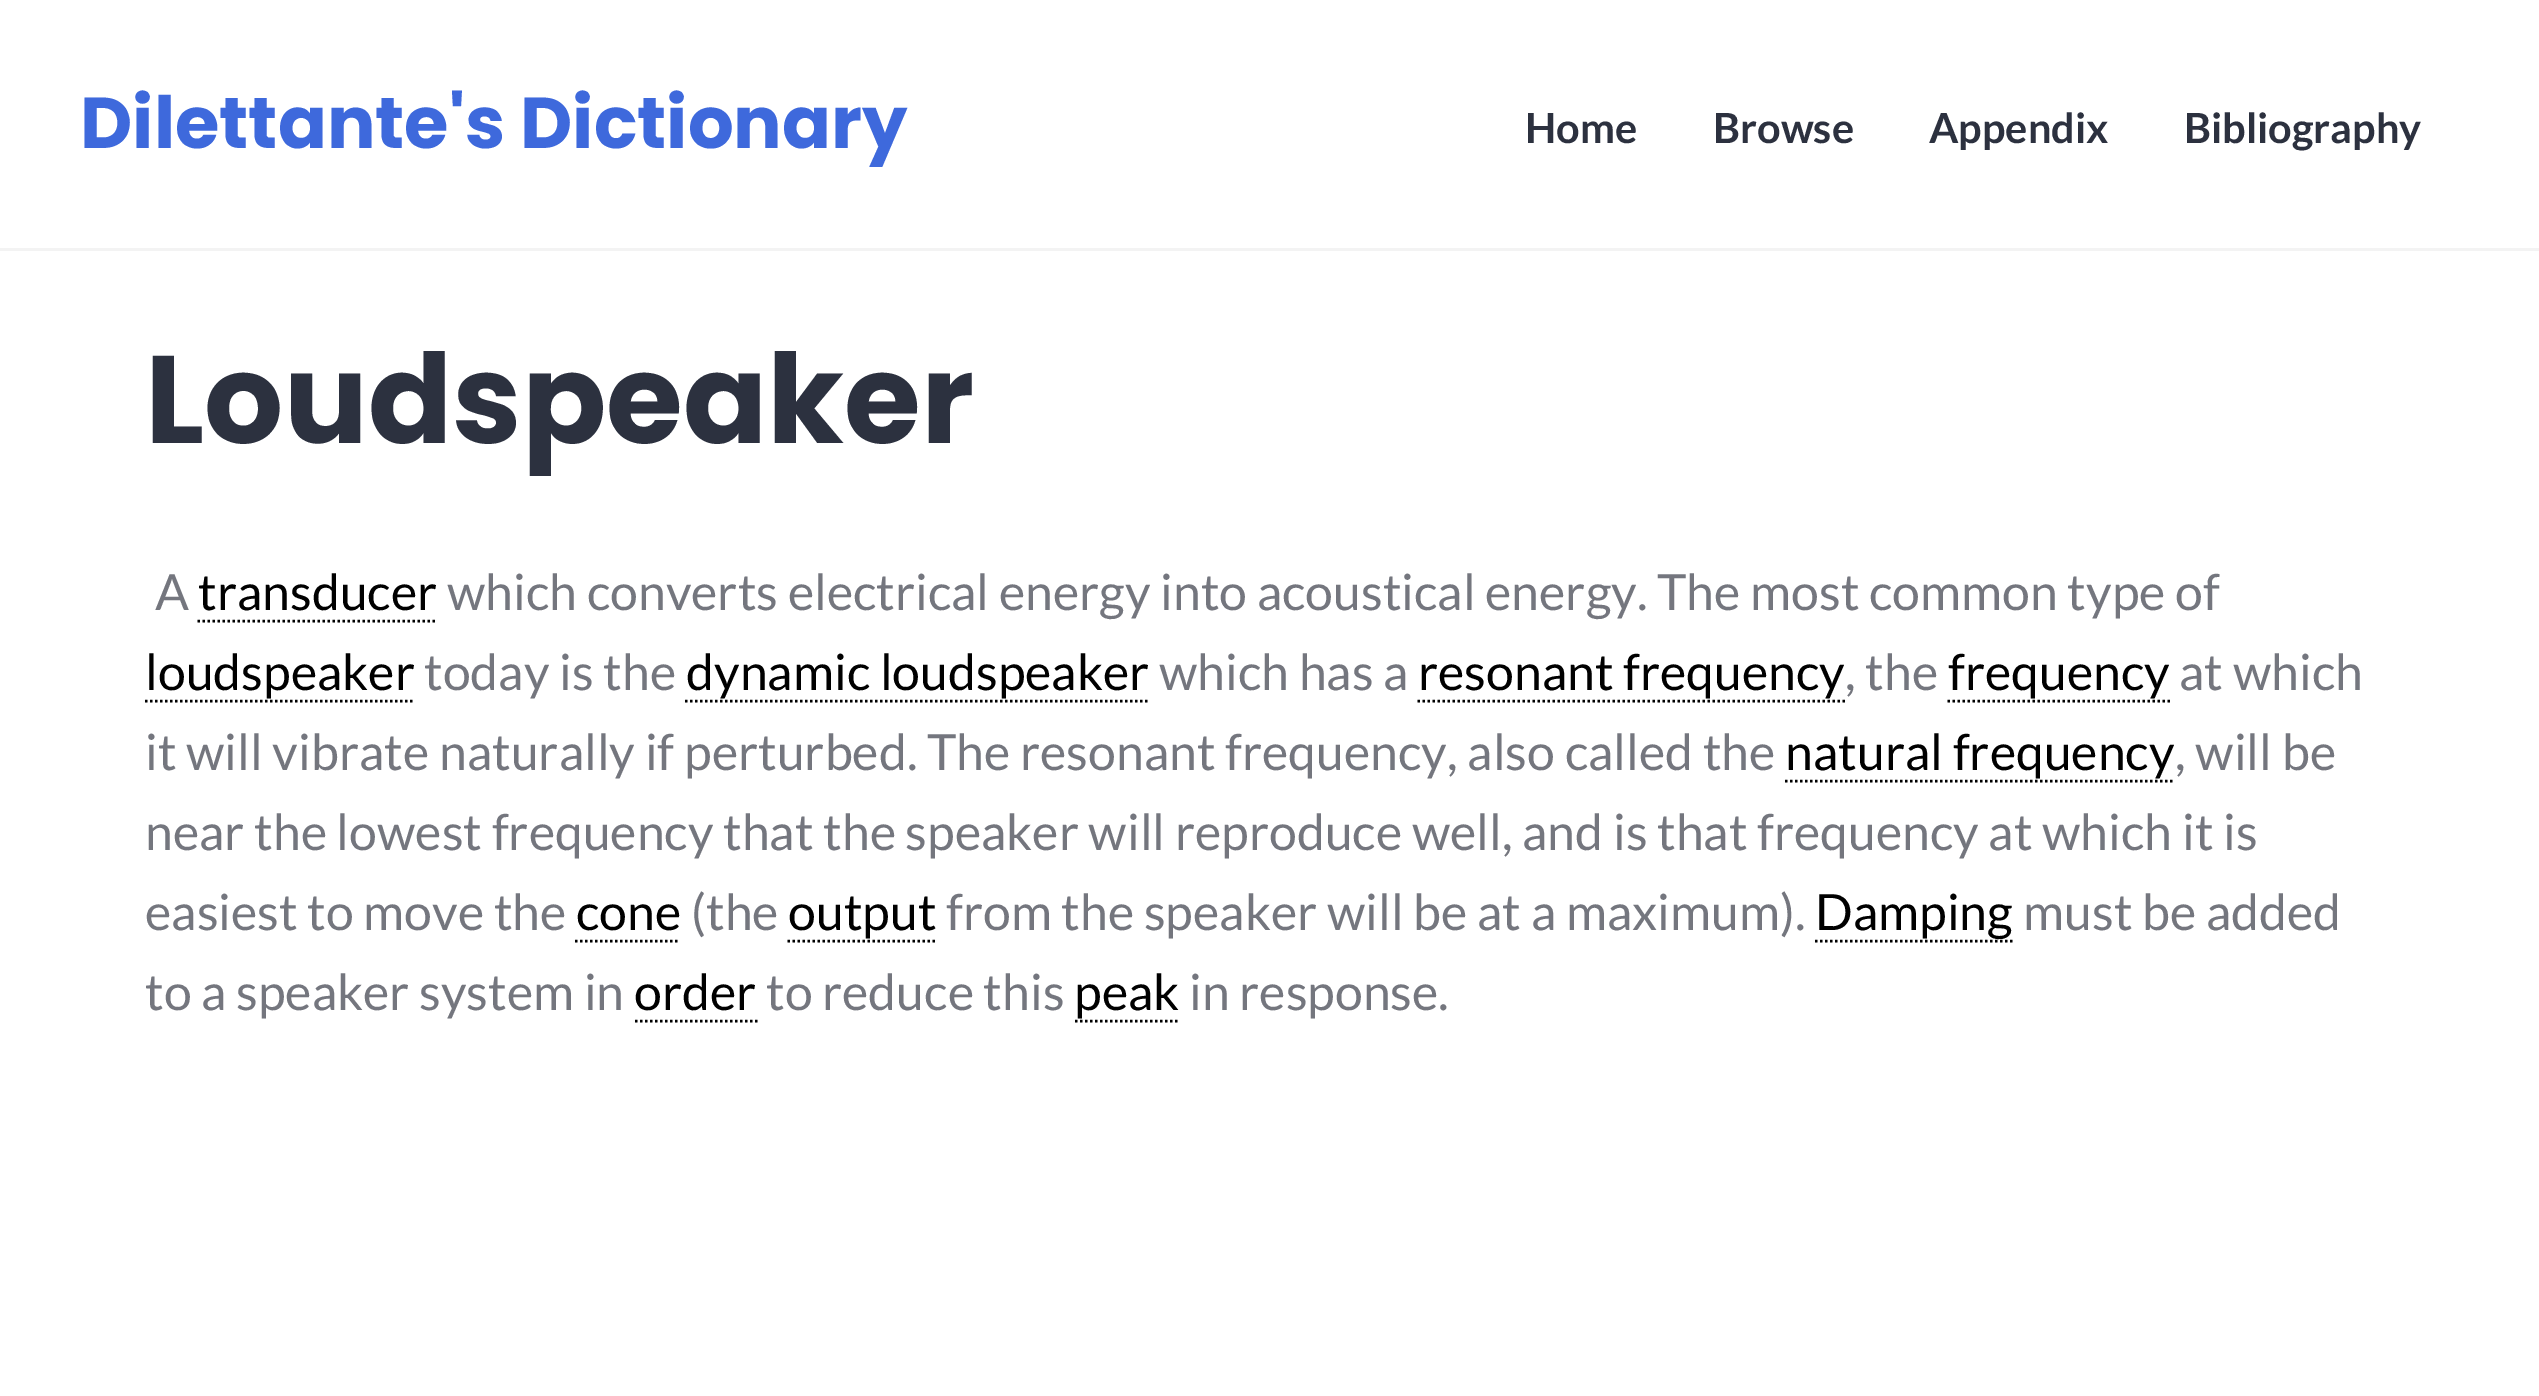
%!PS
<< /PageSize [2539 1396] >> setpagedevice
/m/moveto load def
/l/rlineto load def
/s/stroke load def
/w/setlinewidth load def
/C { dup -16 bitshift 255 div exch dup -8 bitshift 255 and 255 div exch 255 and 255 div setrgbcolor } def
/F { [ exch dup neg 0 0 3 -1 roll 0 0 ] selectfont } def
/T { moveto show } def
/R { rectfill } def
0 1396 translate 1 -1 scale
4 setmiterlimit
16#FFFFFF C
0 0 2539 1396 R
16#F3F3F3 C
0 248 2539 3 R
/Poppins-Bold 72 F
16#3E69DC C
(Dilettante's Dictionary) 80 148 T
/Lato-Bold 41.5 F
16#2C313F C
(Home) 1525 143 T
(Browse) 1713 143 T
(Appendix) 1929 143 T
(Bibliography) 2184 143 T
/Poppins-Bold 124.5 F
(Loudspeaker) 145 443 T
/Lato-Regular 50 F
16#74767E C
(A) 155 610 T
16#000000 C
(transducer) 198 610 T
2.5 w
[2.5 2.5] 0 setdash
197.5 621 m 240 0 l s
16#74767E C
(which converts electrical energy into acoustical energy. The most common type of) 447 610 T
16#000000 C
(loudspeaker) 145 690 T
145 701 m 270 0 l s
16#74767E C
(today is the) 424 690 T
16#000000 C
(dynamic loudspeaker) 686 690 T
685 701 m 465 0 l s
16#74767E C
(which has a) 1159 690 T
16#000000 C
(resonant frequency) 1418 690 T
1417.5 701 m 427.5 0 l s
16#74767E C
(, the) 1845 690 T
16#000000 C
(frequency) 1948 690 T
1947.5 701 m 222.5 0 l s
16#74767E C
(at which) 2179 690 T
(it will vibrate naturally if perturbed. The resonant frequency, also called the) 145 770 T
16#000000 C
(natural frequency) 1785 770 T
1785 781 m 390 0 l s
16#74767E C
(, will be) 2175 770 T
(near the lowest frequency that the speaker will reproduce well, and is that frequency at which it is) 145 850 T
(easiest to move the) 145 930 T
16#000000 C
(cone) 576 930 T
575 941 m 105 0 l s
16#74767E C
(\(the) 691 930 T
16#000000 C
(output) 788 930 T
787.5 941 m 150 0 l s
16#74767E C
(from the speaker will be at a maximum\).) 946 930 T
16#000000 C
1815 941 m 197.5 0 l s
(Damping) 1815 930 T
16#74767E C
(must be added) 2023 930 T
(to a speaker system in) 145 1010 T
16#000000 C
(order) 634 1010 T
635 1021 m 122.5 0 l s
16#74767E C
(to reduce this) 766 1010 T
16#000000 C
(peak) 1074 1010 T
1075 1021 m 105 0 l s
16#74767E C
(in response.) 1189 1010 T
showpage
